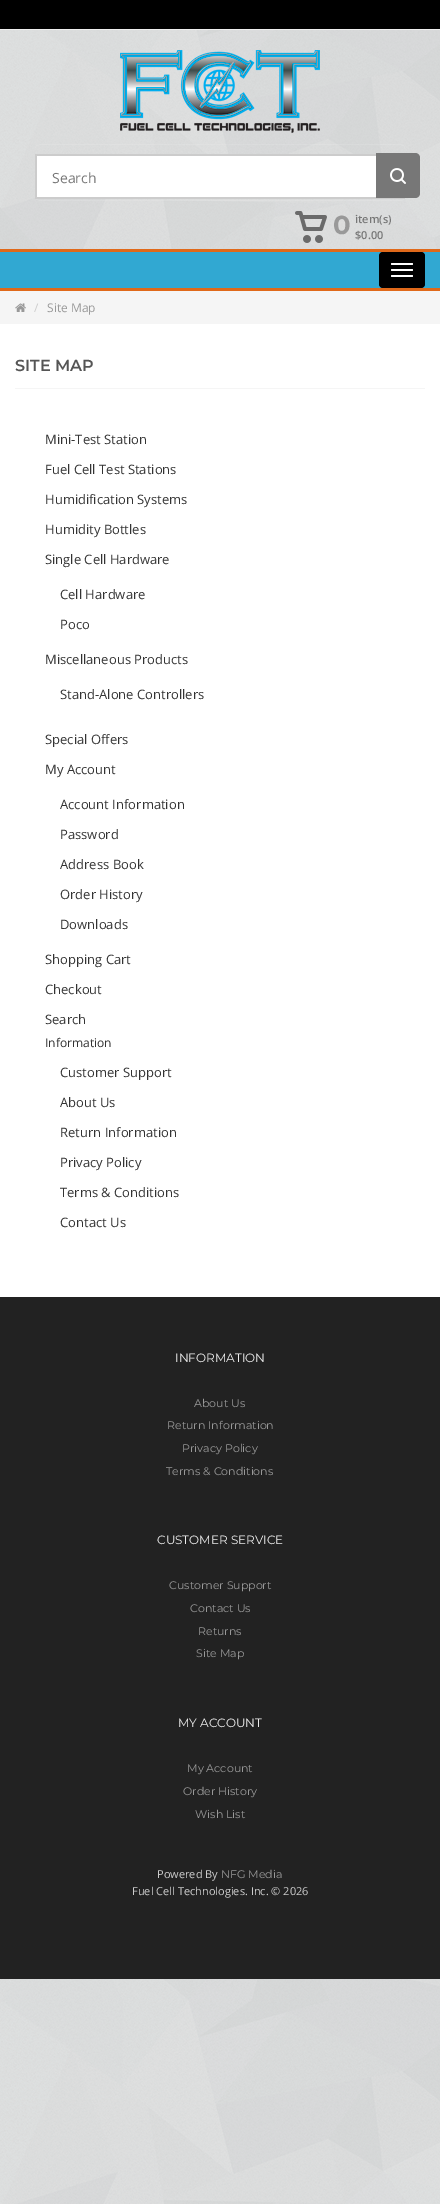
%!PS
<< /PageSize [440 2204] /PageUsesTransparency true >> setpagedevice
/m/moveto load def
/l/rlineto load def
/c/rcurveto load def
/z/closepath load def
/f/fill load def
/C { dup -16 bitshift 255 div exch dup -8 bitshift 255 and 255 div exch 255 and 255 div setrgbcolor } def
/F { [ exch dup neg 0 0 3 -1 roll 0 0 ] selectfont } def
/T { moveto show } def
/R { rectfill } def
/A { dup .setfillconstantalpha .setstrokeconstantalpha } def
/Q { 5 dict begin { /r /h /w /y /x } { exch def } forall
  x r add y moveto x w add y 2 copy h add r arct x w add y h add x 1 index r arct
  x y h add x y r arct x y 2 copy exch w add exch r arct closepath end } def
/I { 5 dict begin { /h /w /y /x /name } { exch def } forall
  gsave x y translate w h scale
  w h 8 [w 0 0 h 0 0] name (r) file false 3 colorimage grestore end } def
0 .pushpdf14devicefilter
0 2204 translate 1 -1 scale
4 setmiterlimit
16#FFFFFF C
0 0 440 2204 R
(1.rgb) 0 30 440 2174 I
16#000000 C
0 0 440 29 R
16#EEEEEE C
0 29 440 1 R
(2.rgb) 120 50 200 83 I
0.1 A
16#FFFFFF C
35 195 m 0 1 l 0 3 2 5 5 5 c 360 0 l 3 0 5 -2 5 -5 c 0 -1 l 0 3 -2 5 -5 5 c -360 0 l -3 0 -5 -2 -5 -5 c z f
40 145 m 360 0 l 3 0 5 2 5 4 c 0 -3 -2 -5 -5 -5 c -360 0 l -3 0 -5 2 -5 5 c 0 -2 2 -4 5 -4 c z f
1 A
37 156 339 41 R
16#CCCCCC C
35 154 341 2 R
35 197 370 2 R
35 154 2 45 R
/OpenSans-Regular 14 F
16#777777 C
(Search) 52 183 T
376 153 m 39 0 l 3 0 5 2 5 5 c 0 35 l 0 3 -2 5 -5 5 c -39 0 l z f
(3.rgb) 390 168 16 16 I
(4.rgb) 295 211 32 32 I
/Montserrat-Bold 26 F
16#999999 C
(0) 333 234 T
/OpenSans-SemiBold 11 F
16#777777 C
(item\(s\)) 355 223 T
($0.00) 355 239 T
16#31A8D2 C
0 252 440 36 R
16#E0691A C
0 249 440 3 R
0 288 440 3 R
16#000000 C
379 252 46 36 4 Q f
16#FFFFFF C
391 263 22 2 1 Q f
391 269 22 2 1 Q f
391 275 22 2 1 Q f
0 324 440 973 R
16#F5F5F5 C
0 291 440 33 R
(5.rgb) 15 303 11 9 I
/OpenSans-Regular 12 F
16#CCCCCC C
(/) 34 312 T
16#999999 C
(Site Map) 47 312 T
16#F5F5F5 C
15 388 410 1 R
/Montserrat-SemiBold 16 F
16#555555 C
(SITE MAP) 15 371 T
/OpenSans-Regular 13 F
16#333333 C
(Mini-Test Station) 45 444 T
(Fuel Cell Test Stations) 45 474 T
(Humidification Systems) 45 504 T
(Humidity Bottles) 45 534 T
(Single Cell Hardware) 45 564 T
(Cell Hardware) 60 599 T
(Poco) 60 629 T
(Miscellaneous Products) 45 664 T
(Stand-Alone Controllers) 60 699 T
(Special Offers) 45 744 T
(My Account) 45 774 T
(Account Information) 60 809 T
(Password) 60 839 T
(Address Book) 60 869 T
(Order History) 60 899 T
(Downloads) 60 929 T
(Shopping Cart) 45 964 T
(Checkout) 45 994 T
(Search) 45 1024 T
/OpenSans-Regular 12 F
(Information) 45 1047 T
/OpenSans-Regular 13 F
(Customer Support) 60 1077 T
(About Us) 60 1107 T
(Return Information) 60 1137 T
(Privacy Policy) 60 1167 T
(Terms & Conditions) 60 1197 T
(Contact Us) 60 1227 T
16#222222 C
0 1297 440 682 R
/Montserrat-Regular 12 F
16#EEEEEE C
(INFORMATION) 175 1362 T
/Montserrat-Regular 11 F
16#999999 C
(About Us) 194 1407 T
(Return Information) 167 1429 T
(Privacy Policy) 182 1452 T
(Terms & Conditions) 166 1475 T
/Montserrat-Regular 12 F
16#EEEEEE C
(CUSTOMER SERVICE) 157 1544 T
/Montserrat-Regular 11 F
16#999999 C
(Customer Support) 169 1589 T
(Contact Us) 190 1612 T
(Returns) 198 1635 T
(Site Map) 196 1657 T
/Montserrat-Regular 12 F
16#EEEEEE C
(MY ACCOUNT) 178 1727 T
/Montserrat-Regular 11 F
16#999999 C
(My Account) 187 1772 T
(Order History) 183 1795 T
(Wish List) 195 1818 T
/OpenSans-Regular 11 F
16#CCCCCC C
(Powered By) 157 1878 T
/Montserrat-Regular 11 F
16#999999 C
(NFG Media) 221 1878 T
/OpenSans-Regular 11 F
16#CCCCCC C
(Fuel Cell Technologies. Inc. © 2026) 132 1895 T
.poppdf14devicefilter showpage
